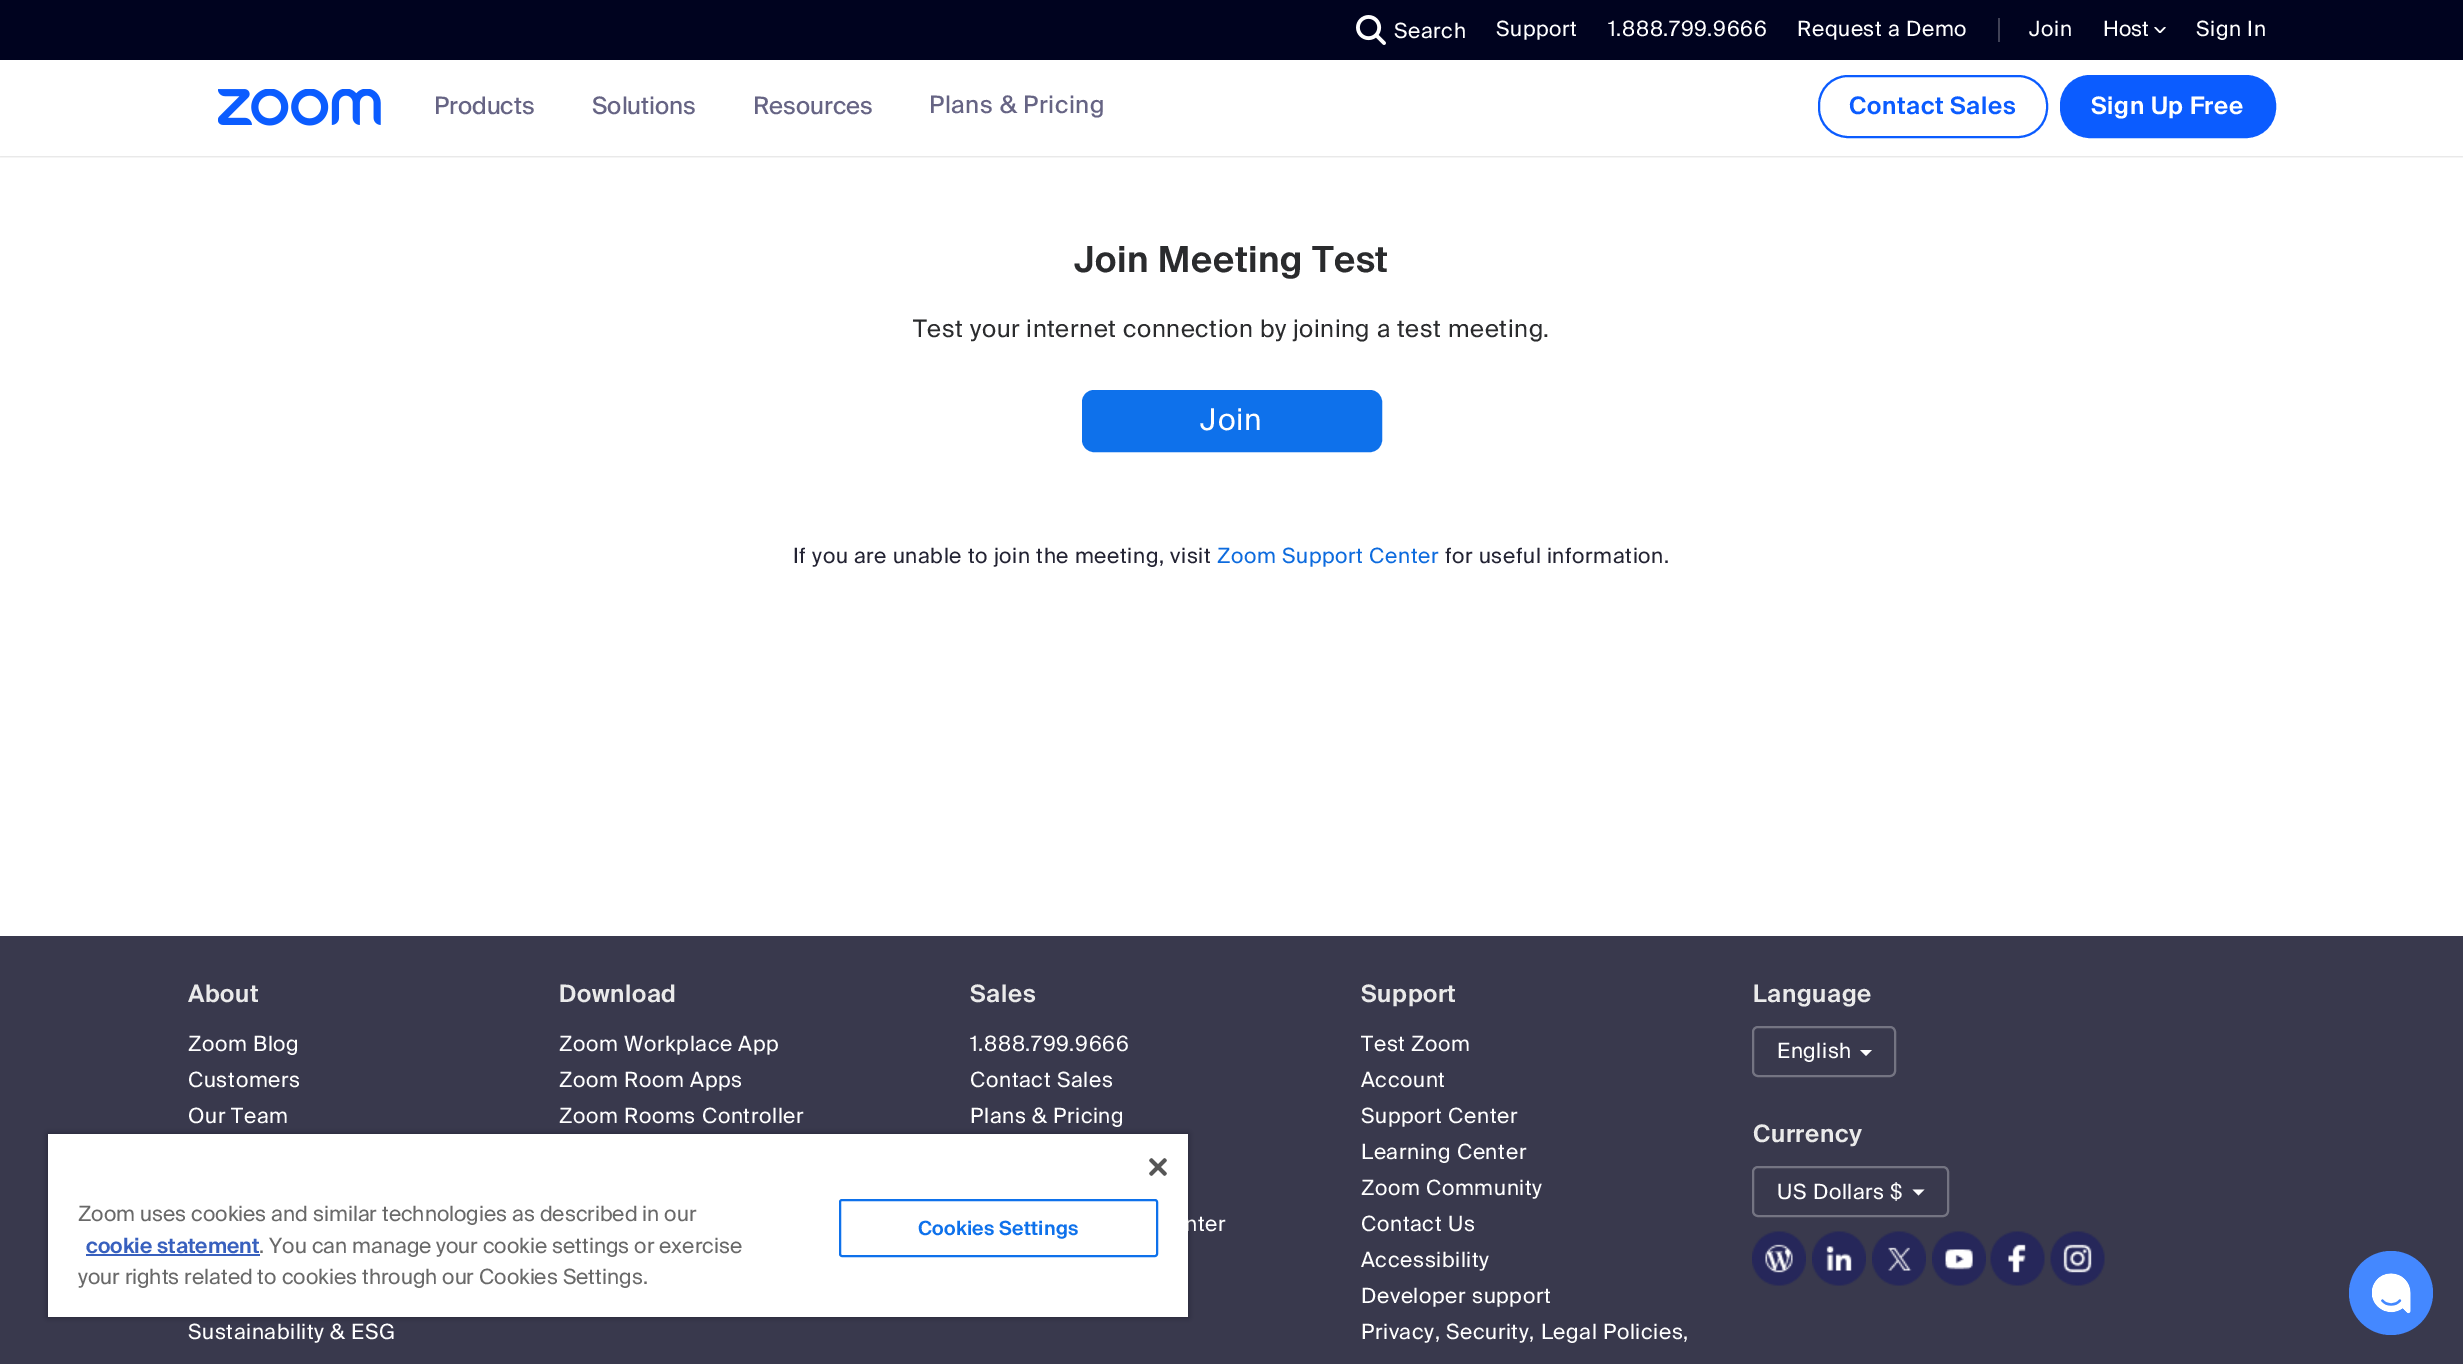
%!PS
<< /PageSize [2463 1364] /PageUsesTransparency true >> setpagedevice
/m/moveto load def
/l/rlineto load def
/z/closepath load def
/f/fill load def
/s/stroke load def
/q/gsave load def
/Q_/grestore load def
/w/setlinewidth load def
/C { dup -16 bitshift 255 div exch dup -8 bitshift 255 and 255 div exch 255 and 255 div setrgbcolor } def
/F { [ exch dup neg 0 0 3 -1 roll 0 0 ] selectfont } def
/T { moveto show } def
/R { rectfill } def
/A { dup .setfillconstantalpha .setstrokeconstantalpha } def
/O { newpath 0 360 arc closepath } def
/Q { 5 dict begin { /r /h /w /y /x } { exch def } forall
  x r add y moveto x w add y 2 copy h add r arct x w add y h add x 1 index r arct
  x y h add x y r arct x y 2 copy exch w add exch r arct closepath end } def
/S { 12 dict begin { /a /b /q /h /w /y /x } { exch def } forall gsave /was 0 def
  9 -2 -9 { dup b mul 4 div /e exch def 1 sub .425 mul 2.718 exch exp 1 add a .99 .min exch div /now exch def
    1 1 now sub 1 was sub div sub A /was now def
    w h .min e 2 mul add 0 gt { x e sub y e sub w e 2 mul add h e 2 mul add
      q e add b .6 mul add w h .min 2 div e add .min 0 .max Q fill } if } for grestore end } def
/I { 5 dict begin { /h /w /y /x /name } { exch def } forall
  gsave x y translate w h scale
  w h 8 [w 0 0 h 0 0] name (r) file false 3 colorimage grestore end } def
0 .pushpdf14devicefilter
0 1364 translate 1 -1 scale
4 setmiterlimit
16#39394D C
0 0 2463 1364 R
16#FFFFFF C
0 60 2463 876 R
q
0 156 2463 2 rectclip
16#000000 C
0 0 2463 156 0 1.5 .2 S
Q_
16#00031F C
0 0 2463 60 R
(1.rgb) 1356 15 30 30 I
/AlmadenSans-Regular 21 F
16#FFFFFF C
1394 38 m .63 0 (Search) ashow
1496 36 m .63 0 (Support) ashow
1608 36 m .63 0 (1.888.799.9666) ashow
1797 36 m .63 0 (Request a Demo) ashow
16#404257 C
1998 18 2 24 R
16#FFFFFF C
2029 36 m .63 0 (Join) ashow
(Host) 2103 36 T
(2.rgb) 2154 27 12 6 I
2196 36 m .63 0 (Sign In) ashow
(3.rgb) 218 89 163 37 I
/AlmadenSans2-Regular 24 F
16#666484 C
(Products) 434 114 T
(Solutions) 592 114 T
(Resources) 753 114 T
929 113 m .63 0 (Plans & Pricing) ashow
16#0B5CFF C
2 w
1819 76 228 61 29 Q s
/AlmadenSans-SemiBold 24 F
1849 114 m .63 0 (Contact Sales) ashow
2061 76 214 61 29 Q q f Q_
s
16#FFFFFF C
2091 114 m .63 0 (Sign Up Free) ashow
/AlmadenSans-SemiBold 36 F
16#2A2B2D C
1074 272 m .63 0 (Join Meeting Test) ashow
/AlmadenSans-Regular 24 F
913 337 m .63 0 (Test your internet connection by joining a test meeting.) ashow
16#0E71EB C
1083 391 298 60 11 Q q f Q_
s
/AlmadenSans-Regular 30 F
16#FFFFFF C
1200 430 m 1 0 (Join) ashow
/AlmadenSans-Regular 21 F
16#232333 C
793 563 m .63 0 (If you are unable to join the meeting, visit) ashow
16#0D6BDE C
1217 563 m .63 0 (Zoom Support Center) ashow
16#232333 C
1445 563 m .63 0 (for useful information.) ashow
/AlmadenSans-SemiBold 24 F
16#EAEAEA C
188 1002 m .63 0 (About) ashow
/AlmadenSans-Regular 21 F
16#FFFFFF C
188 1051 m .63 0 (Zoom Blog) ashow
188 1087 m .63 0 (Customers) ashow
188 1123 m .63 0 (Our Team) ashow
188 1339 m .63 0 (Sustainability & ESG) ashow
/AlmadenSans-SemiBold 24 F
16#EAEAEA C
559 1002 m .63 0 (Download) ashow
/AlmadenSans-Regular 21 F
16#FFFFFF C
559 1051 m .63 0 (Zoom Workplace App) ashow
559 1087 m .63 0 (Zoom Room Apps) ashow
559 1123 m .63 0 (Zoom Rooms Controller) ashow
/AlmadenSans-SemiBold 24 F
16#EAEAEA C
970 1002 m .63 0 (Sales) ashow
/AlmadenSans-Regular 21 F
16#FFFFFF C
970 1051 m .63 0 (1.888.799.9666) ashow
970 1087 m .63 0 (Contact Sales) ashow
970 1123 m .63 0 (Plans & Pricing) ashow
1185 1231 m .63 0 (nter) ashow
/AlmadenSans-SemiBold 24 F
16#EAEAEA C
1361 1002 m .63 0 (Support) ashow
/AlmadenSans-Regular 21 F
16#FFFFFF C
1361 1051 m .63 0 (Test Zoom) ashow
1361 1087 m .63 0 (Account) ashow
1361 1123 m .63 0 (Support Center) ashow
1361 1159 m .63 0 (Learning Center) ashow
1361 1195 m .63 0 (Zoom Community) ashow
1361 1231 m .63 0 (Contact Us) ashow
1361 1267 m .63 0 (Accessibility) ashow
1361 1303 m .63 0 (Developer support) ashow
1361 1339 m .63 0 (Privacy, Security, Legal Policies,) ashow
/AlmadenSans-SemiBold 24 F
16#EAEAEA C
1753 1002 m .63 0 (Language) ashow
16#747482 C
1753 1027 142 49 5 Q s
/AlmadenSans-Regular 21 F
16#FFFFFF C
1777 1058 m .63 0 (English) ashow
1860 1050 m 12 0 l -6 6 l z f
/AlmadenSans-SemiBold 24 F
16#EAEAEA C
1753 1142 m .63 0 (Currency) ashow
16#747482 C
1753 1167 195 49 5 Q s
/AlmadenSans-Regular 21 F
16#FFFFFF C
1777 1199 m .63 0 (US Dollars $) ashow
1912.5 1189.5 m 12 0 l -6 6 l z f
(4.rgb) 1752 1231 54 55 I
(5.rgb) 1812 1231 54 55 I
(6.rgb) 1872 1231 54 55 I
(7.rgb) 1932 1231 54 55 I
(8.rgb) 1990 1231 55 55 I
(9.rgb) 2050 1231 55 55 I
16#000000 C
48 1134 1140 183 0 3 .35 S
16#FFFFFF C
48 1134 1140 183 R
(10.rgb) 1149 1158 18 18 I
16#696969 C
(Zoom uses cookies and similar technologies as described in our) 78 1221 T
/AlmadenSans-SemiBold 21 F
16#3860BE C
(cookie statement) 86 1253 T
86 1254 174 2 R
/AlmadenSans-Regular 21 F
16#696969 C
(. You can manage your cookie settings or exercise) 259 1253 T
(your rights related to cookies through our Cookies Settings.) 78 1284 T
16#0E71EB C
840 1200 317 56 2 Q s
/AlmadenSans-SemiBold 19.5 F
918 1235 m .25 0 (Cookies Settings) ashow
16#4488FF C
2391 1293 42 O f
(11.rgb) 2372 1273 39 41 I
.poppdf14devicefilter showpage
